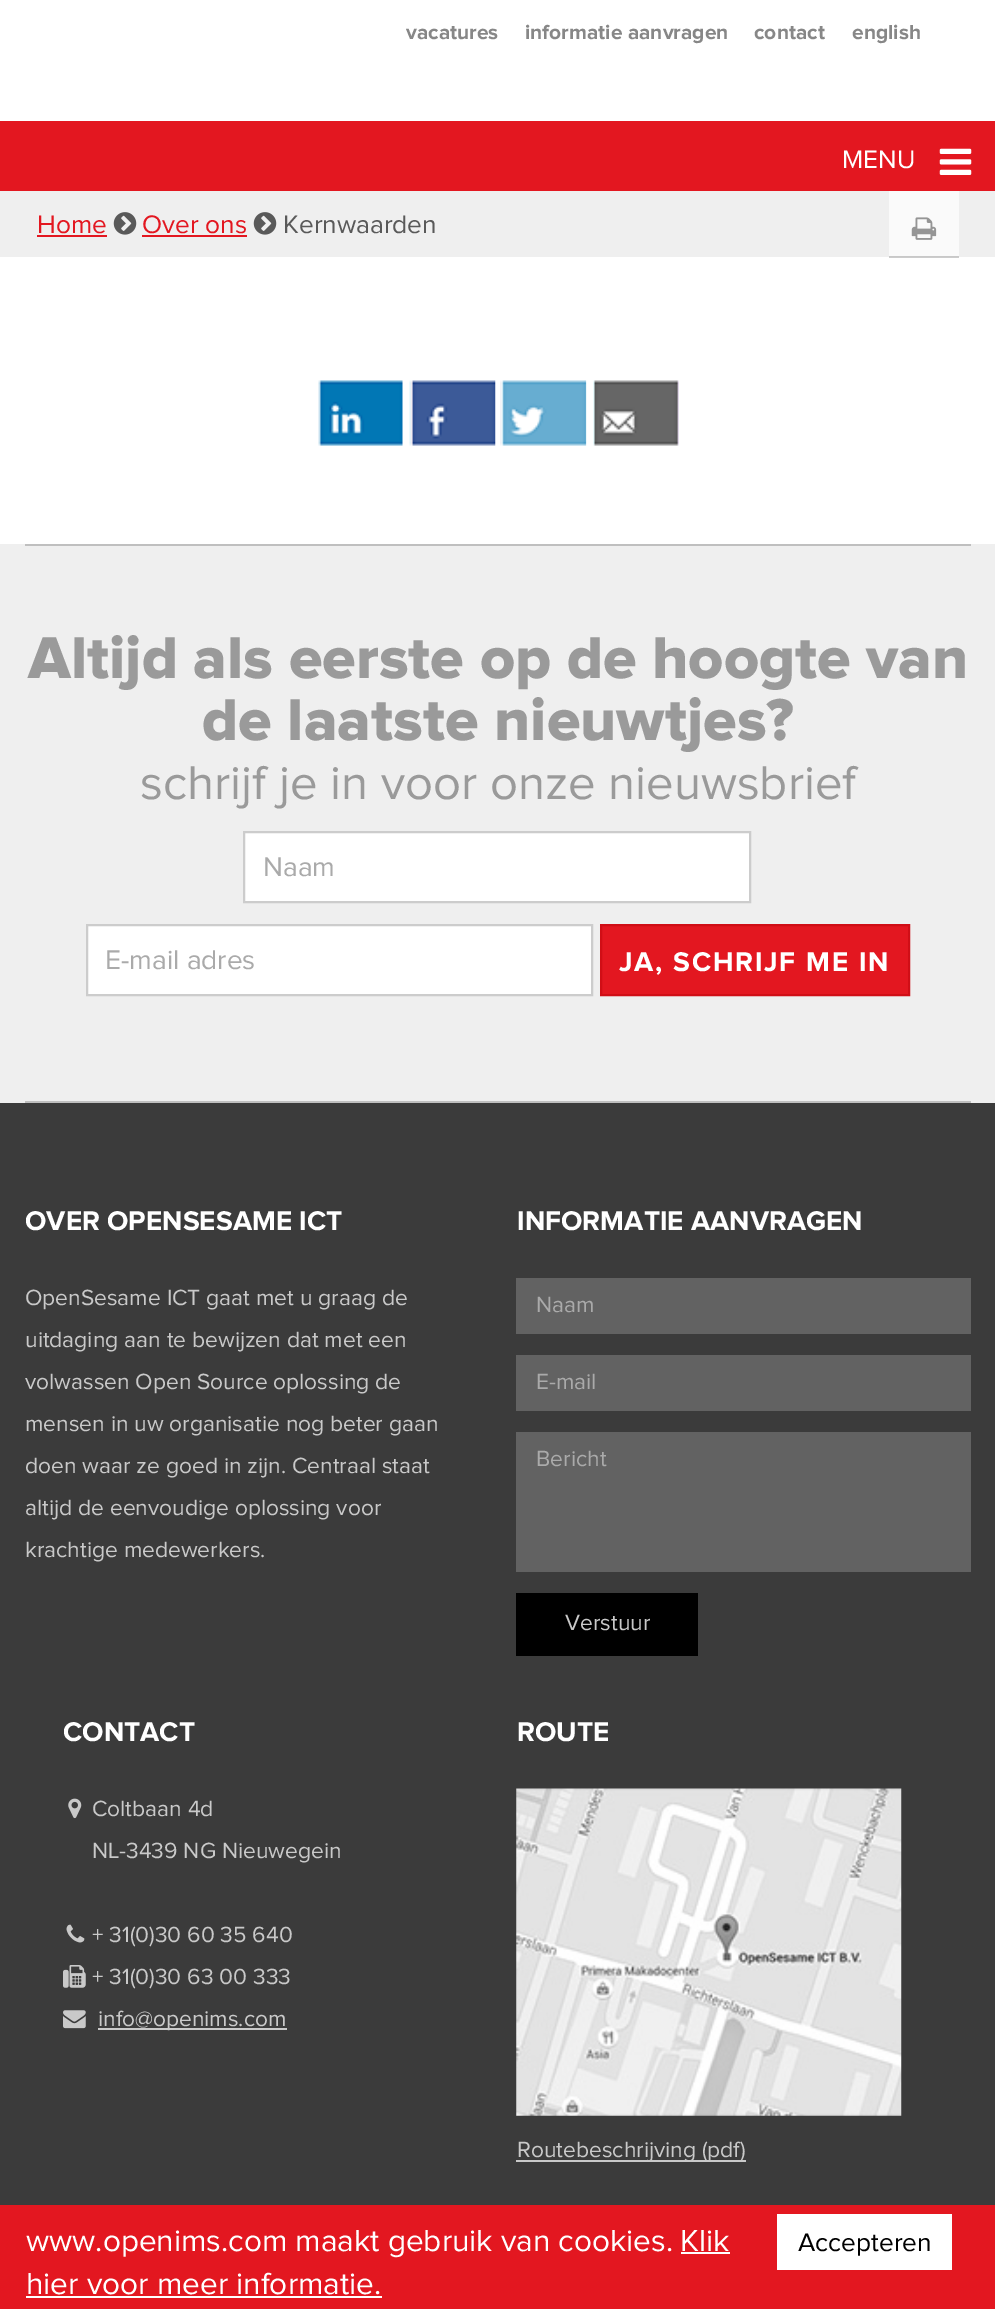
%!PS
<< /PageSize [995 2309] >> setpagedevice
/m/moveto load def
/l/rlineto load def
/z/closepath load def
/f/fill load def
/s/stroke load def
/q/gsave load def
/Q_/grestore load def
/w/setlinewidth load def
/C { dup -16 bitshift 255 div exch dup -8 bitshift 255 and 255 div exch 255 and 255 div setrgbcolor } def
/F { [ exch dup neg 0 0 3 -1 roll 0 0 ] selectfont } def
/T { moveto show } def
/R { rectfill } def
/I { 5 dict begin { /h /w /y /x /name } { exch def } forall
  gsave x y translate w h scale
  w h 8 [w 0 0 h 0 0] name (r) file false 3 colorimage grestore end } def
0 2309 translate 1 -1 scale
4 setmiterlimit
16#FFFFFF C
0 0 995 2309 R
16#CCCCCC C
889 257 70 1 R
/ProximaNova-Bold 21 F
16#878787 C
(vacatures) 406 39 T
(informatie aanvragen) 525 39 T
(contact) 754 39 T
(english) 852 39 T
16#E31720 C
0 121 995 70 R
/ProximaNova-Regular 26.25 F
16#FFFFFF C
(MENU) 842 168 T
(1.rgb) 939 148 33 27 I
16#EFEFEF C
0 191 995 66 R
16#FAFAFA C
889 191 70 65 R
16#C8C8C8 C
889 256 70 1 R
16#E31720 C
(Home) 37 233 T
37 235 70 2 R
(2.rgb) 113 212 24 23 I
(Over ons) 142 233 T
142 235 105 2 R
(2.rgb) 253 212 24 23 I
16#595959 C
(Kernwaarden) 283 233 T
(3.rgb) 911 217 26 23 I
(4.rgb) 318 380 85 66 I
(5.rgb) 409 380 87 66 I
(6.rgb) 500 380 87 66 I
(7.rgb) 593 380 86 66 I
16#EFEFEF C
0 544 995 559 R
16#BFBFBF C
25 544 946 2 R
25 1101 946 2 R
/ProximaNova-ExtraBold 61.25 F
16#9A9A9A C
(Altijd als eerste op de hoogte van) 28 678 T
(de laatste nieuwtjes?) 202 740 T
/ProximaNova-Regular 49 F
(schrijf je in voor onze nieuwsbrief) 140 799 T
16#FFFFFF C
244 832 m 506 0 l 0 70 l -506 0 l z q f Q_
16#CCCCCC C
2 w
s
/ProximaNova-Regular 28 F
16#AAAAAA C
(Naam) 263 876 T
16#FFFFFF C
87 925 m 505 0 l 0 70 l -505 0 l z q f Q_
16#CCCCCC C
s
16#AAAAAA C
(E-mail adres) 105 969 T
16#E31720 C
601 925 m 308 0 l 0 70 l -308 0 l z q f Q_
16#D00E16 C
s
/ProximaNova-Bold 28 F
16#FFFFFF C
619 971 m 1.75 0 (JA, SCHRIJF ME IN) ashow
16#3B3B3B C
0 1103 995 1102 R
16#FFFFFF C
(OVER OPENSESAME ICT) 25 1230 T
/ProximaNova-Regular 22.75 F
16#C9C9C9 C
(OpenSesame ICT gaat met u graag de) 25 1305 T
(uitdaging aan te bewijzen dat met een) 25 1347 T
(volwassen Open Source oplossing de) 25 1389 T
(mensen in uw organisatie nog beter gaan) 25 1431 T
(doen waar ze goed in zijn. Centraal staat) 25 1473 T
(altijd de eenvoudige oplossing voor) 25 1515 T
(krachtige medewerkers.) 25 1557 T
/ProximaNova-Bold 28 F
16#FFFFFF C
(INFORMATIE AANVRAGEN) 517 1230 T
16#626262 C
516 1278 455 56 R
/ProximaNova-Regular 22.75 F
16#AAAAAA C
(Naam) 536 1312 T
16#626262 C
516 1355 455 56 R
16#AAAAAA C
(E-mail) 536 1389 T
16#626262 C
516 1432 455 140 R
16#AAAAAA C
(Bericht) 536 1466 T
16#000000 C
516 1593 182 63 R
16#C9C9C9 C
(Verstuur) 565 1630 T
/ProximaNova-Bold 28 F
16#FFFFFF C
(CONTACT) 63 1741 T
(8.rgb) 68 1798 14 21 I
/ProximaNova-Regular 22.75 F
16#C9C9C9 C
(Coltbaan 4d) 92 1816 T
(NL-3439 NG Nieuwegein) 92 1858 T
(9.rgb) 66 1924 19 19 I
(+ 31\(0\)30 60 35 640) 92 1942 T
(10.rgb) 63 1965 23 23 I
(+ 31\(0\)30 63 00 333) 92 1984 T
(11.rgb) 63 2010 23 19 I
98 2028 189 2 R
(info@openims.com) 98 2026 T
/ProximaNova-Bold 28 F
16#FFFFFF C
(ROUTE) 517 1741 T
(12.rgb) 516 1788 386 328 I
16#C9C9C9 C
516 2160 230 2 R
/ProximaNova-Regular 22.75 F
(Routebeschrijving \(pdf\)) 517 2157 T
16#E31720 C
0 2205 995 104 R
/ProximaNova-Regular 31.5 F
16#FFFFFF C
(www.openims.com maakt gebruik van cookies.) 26 2251 T
(Klik) 680 2251 T
681 2252 49 2 R
(hier voor meer informatie.) 26 2294 T
26 2296 356 2 R
777 2214 175 56 R
/ProximaNova-Regular 26.25 F
16#000000 C
(Accepteren) 798 2251 T
showpage
